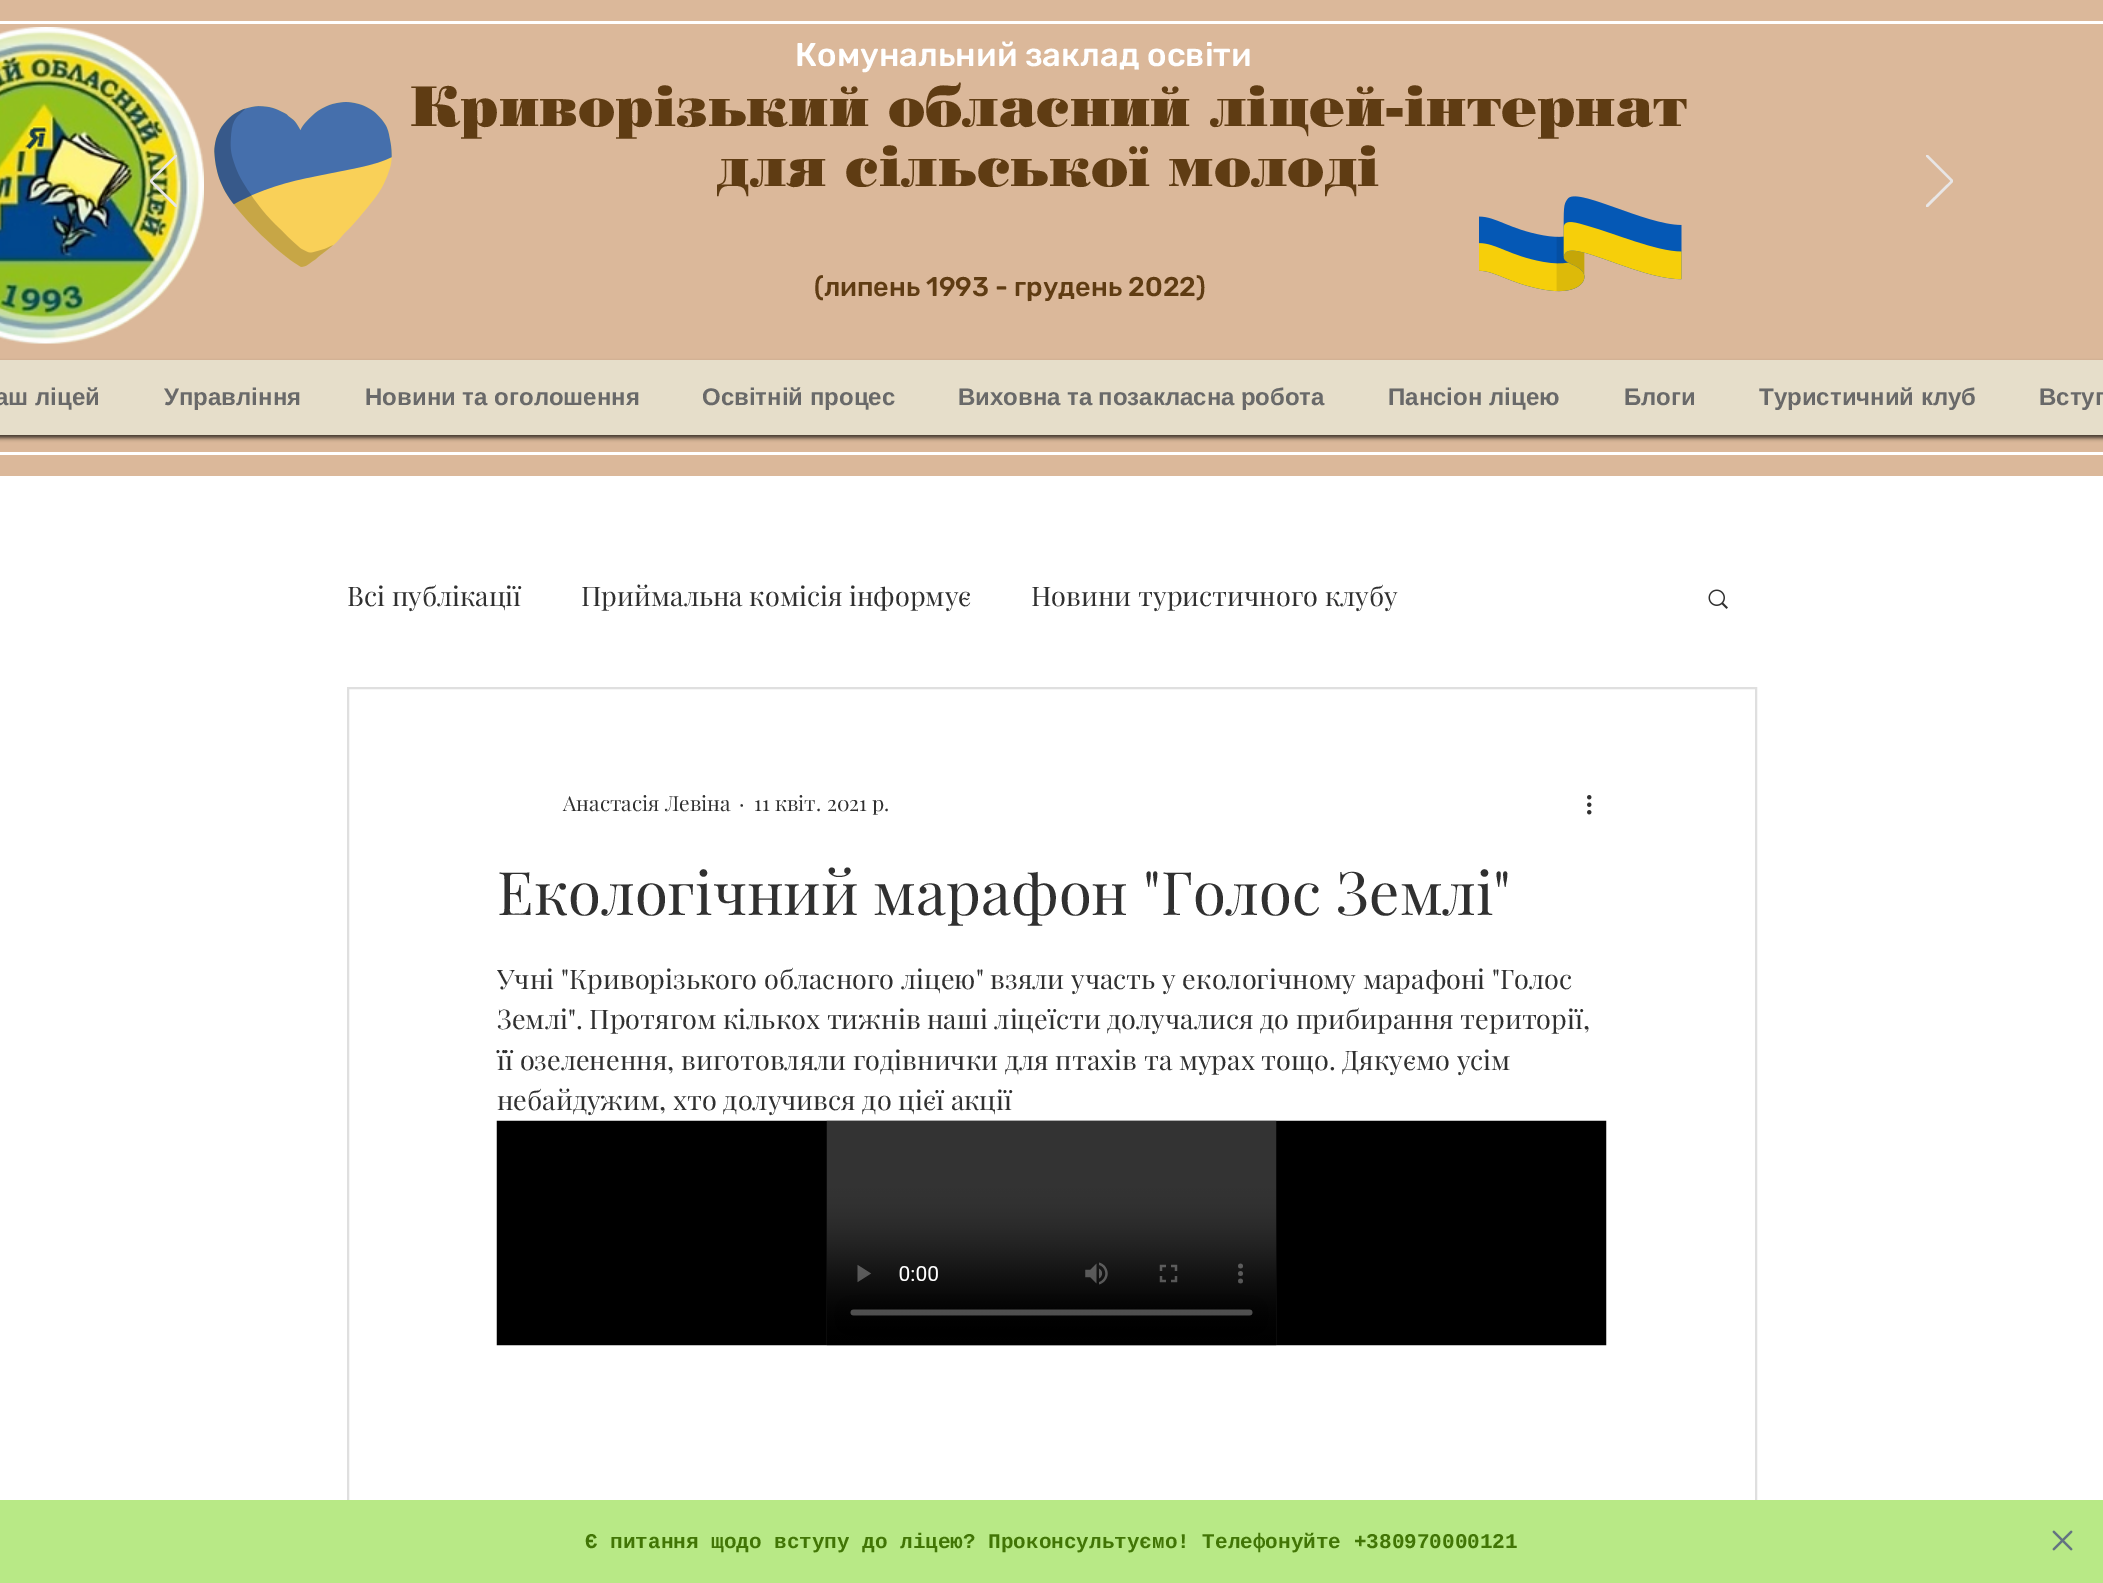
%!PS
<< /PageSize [2103 1583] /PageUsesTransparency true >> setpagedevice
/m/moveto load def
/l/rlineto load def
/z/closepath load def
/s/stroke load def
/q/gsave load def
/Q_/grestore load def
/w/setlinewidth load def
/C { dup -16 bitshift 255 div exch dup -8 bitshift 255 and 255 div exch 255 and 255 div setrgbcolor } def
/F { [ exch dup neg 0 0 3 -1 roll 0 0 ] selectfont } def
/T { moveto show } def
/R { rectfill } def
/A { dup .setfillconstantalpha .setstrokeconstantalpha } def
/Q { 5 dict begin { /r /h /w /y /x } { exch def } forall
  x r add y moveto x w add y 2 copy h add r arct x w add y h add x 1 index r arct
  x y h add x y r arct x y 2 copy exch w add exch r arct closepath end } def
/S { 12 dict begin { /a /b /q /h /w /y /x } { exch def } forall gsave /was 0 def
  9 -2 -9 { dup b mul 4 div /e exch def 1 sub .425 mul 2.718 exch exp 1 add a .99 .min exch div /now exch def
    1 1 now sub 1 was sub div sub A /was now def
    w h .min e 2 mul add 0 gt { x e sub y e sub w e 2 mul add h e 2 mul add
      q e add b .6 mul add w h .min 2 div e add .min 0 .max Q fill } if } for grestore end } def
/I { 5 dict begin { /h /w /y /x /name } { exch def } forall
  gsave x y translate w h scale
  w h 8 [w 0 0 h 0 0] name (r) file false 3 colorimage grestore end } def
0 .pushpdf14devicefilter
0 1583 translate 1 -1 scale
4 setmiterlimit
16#FFFFFF C
0 0 2103 1583 R
16#DBB89A C
0 0 2103 476 R
16#FFFFFF C
0 21 2103 3 R
0 452 2103 3 R
(1.rgb) 0 27 204 317 I
q
150 155 27 52 rectclip
16#E8E6E6 C
1.3 w
176 207 m -26 -26 l 26 -26 l 1 .5 l -25.5 25.5 l 25.5 25 l z s
Q_
/Rubik-Medium 33 F
(Комунальний заклад освіти) 795 66 T
(2.rgb) 214 102 178 165 I
/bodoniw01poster-Regular 57 F
16#5F3C13 C
(Криворізький обласний ліцей інтернат) 410 126 T
/bodoniw01poster-Black 57 F
(-) 1385 126 T
/bodoniw01poster-Regular 57 F
(для сільської молоді) 717 186 T
/Rubik-Medium 27 F
(\(липень 1993 - грудень 2022\)) 814 296 T
(3.rgb) 1479 196 203 96 I
q
1926 155 27 52 rectclip
16#E8E6E6 C
1.3 w
1927 207 m 26 -26 l -26 -26 l -1 .5 l 25.5 25.5 l -25.5 25 l z s
Q_
16#000000 C
-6 363 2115 75 0 2 .7 S
16#E6DECA C
0 360 2103 75 R
/LiberationSans-Bold 24 F
16#696969 C
(аш ліцей) -5 405 T
(Управління) 164 405 T
(Новини та оголошення) 365 405 T
(Освітній процес) 702 405 T
958 405 m -.5 0 32 (Виховна та позакласна робота) widthshow
(Пансіон ліцею) 1388 405 T
(Блоги) 1624 405 T
(Туристичний клуб) 1759 405 T
(Вступ) 2039 405 T
/PlayfairDisplay-Regular 27 F
16#303030 C
(Всі публікації) 347 606 T
(Приймальна комісія інформує) 581 606 T
(Новини туристичного клубу) 1031 606 T
(4.rgb) 1708 589 20 20 I
16#DFDFDF C
2 w
348 688 1408 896 rectstroke
/PlayfairDisplay-Regular 21 F
16#303030 C
(Анастасія Левіна) 563 811 T
(·) 739 811 T
(11 квіт. 2021 р.) 754 811 T
(5.rgb) 1587 795 5 20 I
/PlayfairDisplay-Regular 60 F
(Екологічний марафон "Голос Землі") 497 915 T
/PlayfairDisplay-Regular 27 F
(Учні "Криворізького обласного ліцею" взяли участь у екологічному марафоні "Голос) 497 989 T
(Землі". Протягом кількох тижнів наші ліцеїсти долучалися до прибирання території,) 497 1029 T
(її озеленення, виготовляли годівнички для птахів та мурах тощо. Дякуємо усім) 497 1070 T
(небайдужим, хто долучився до цієї акції) 497 1110 T
(6.rgb) 496 1120 1111 226 I
16#B8E986 C
0 1500 2103 83 R
/LiberationMono-Bold 21 F
16#417505 C
(Є питання щодо вступу до ліцею? Проконсультуємо! Телефонуйте +380970000121) 585 1548 T
(7.rgb) 2052 1530 21 21 I
.poppdf14devicefilter showpage
